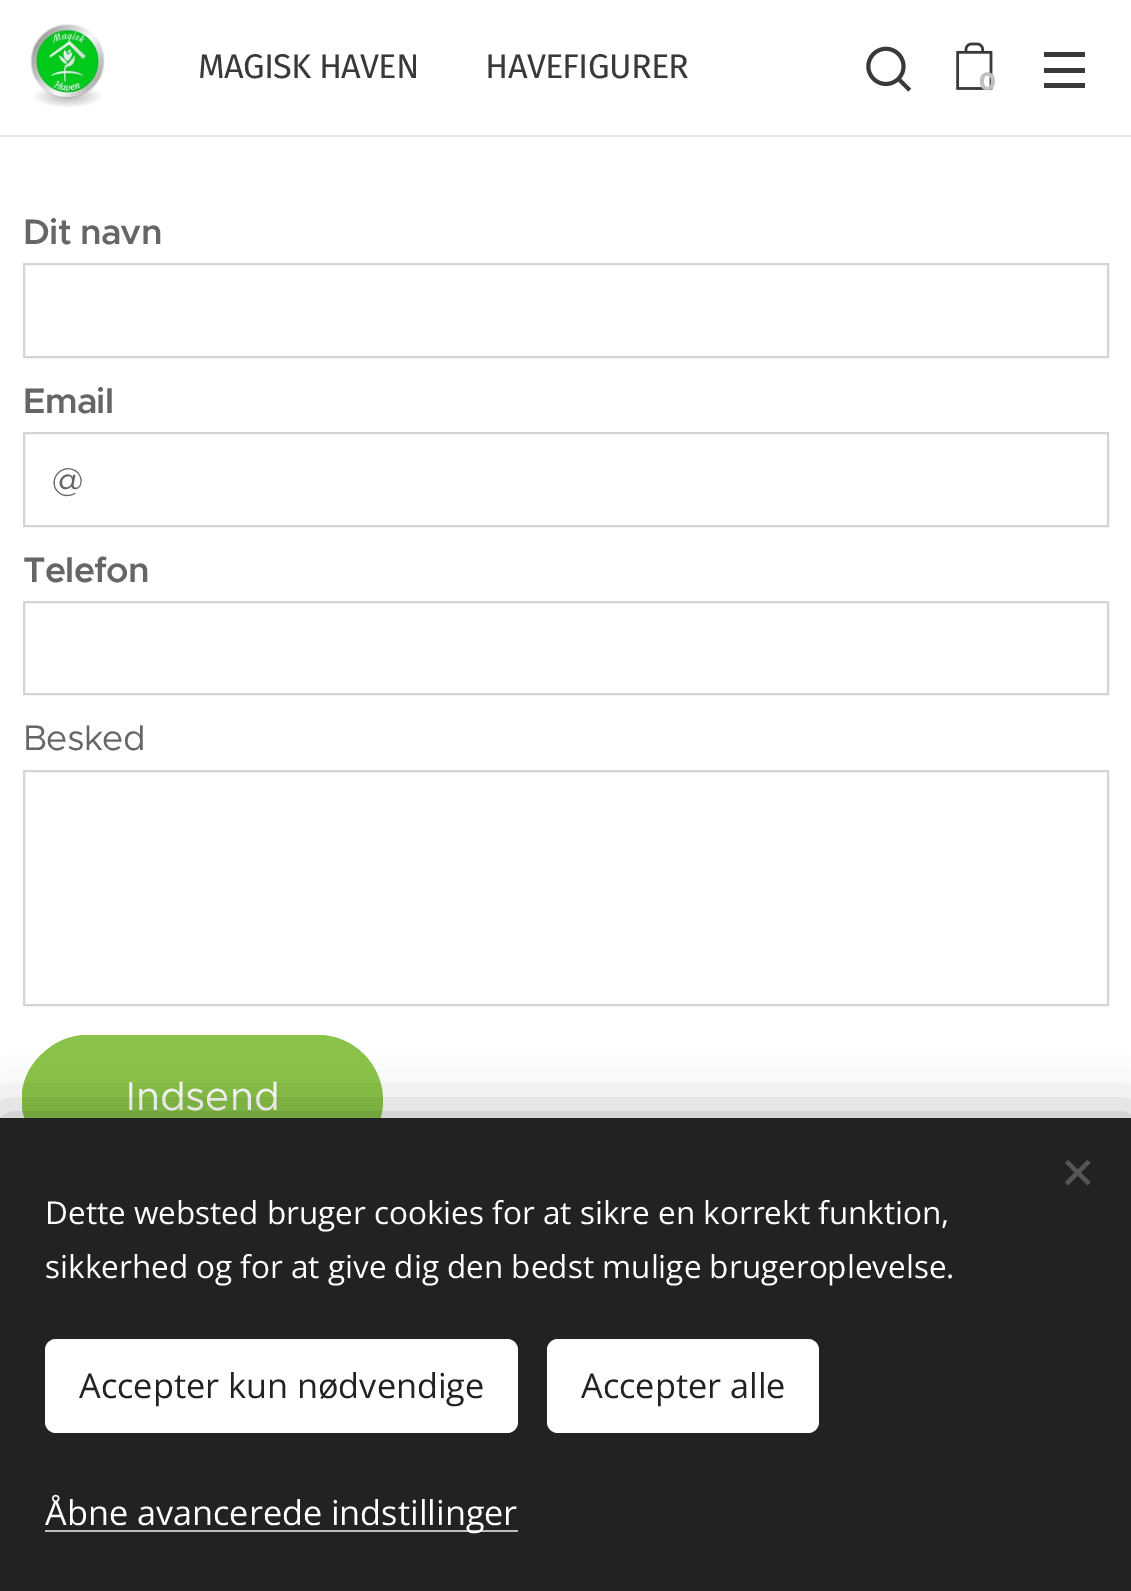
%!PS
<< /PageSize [1131 1591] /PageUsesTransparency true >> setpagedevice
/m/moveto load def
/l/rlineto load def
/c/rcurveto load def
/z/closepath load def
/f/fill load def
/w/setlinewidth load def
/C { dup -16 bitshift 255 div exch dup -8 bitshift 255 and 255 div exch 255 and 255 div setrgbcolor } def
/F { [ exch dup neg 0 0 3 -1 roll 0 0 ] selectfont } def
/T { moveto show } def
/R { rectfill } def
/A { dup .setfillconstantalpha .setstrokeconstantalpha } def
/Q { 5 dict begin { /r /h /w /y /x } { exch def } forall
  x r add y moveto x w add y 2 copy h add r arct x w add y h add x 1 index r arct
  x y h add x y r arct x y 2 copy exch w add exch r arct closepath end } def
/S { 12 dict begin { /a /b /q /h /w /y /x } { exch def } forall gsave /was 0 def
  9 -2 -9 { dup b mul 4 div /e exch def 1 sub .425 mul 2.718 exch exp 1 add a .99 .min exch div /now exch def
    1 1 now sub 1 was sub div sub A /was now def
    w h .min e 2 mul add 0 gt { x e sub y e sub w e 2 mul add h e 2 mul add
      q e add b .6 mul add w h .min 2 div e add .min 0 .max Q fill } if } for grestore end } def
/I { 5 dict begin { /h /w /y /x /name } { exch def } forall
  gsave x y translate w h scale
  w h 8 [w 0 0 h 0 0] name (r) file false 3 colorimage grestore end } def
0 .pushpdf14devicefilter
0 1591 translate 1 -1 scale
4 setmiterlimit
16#FFFFFF C
0 0 1131 1591 R
16#E8E8E8 C
0 135 1131 2 R
(1.rgb) 30 24 75 83 I
/FiraSans-Regular 34.25 F
16#393939 C
198 78 m -.75 0 (MAGISK HAVEN        HAVEFIGURER) ashow
(2.rgb) 866 46 46 46 I
(3.rgb) 956 42 37 48 I
/Montserrat-Bold 25 F
16#C0C0C0 C
(0) 979 90 T
16#393939 C
1044 68 41 5 R
1044 52 41 5 R
1044 83 41 5 R
/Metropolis-SemiBold 35.5 F
16#666666 C
23 244 m -.75 0 (Dit navn) ashow
16#D4D4D4 C
2 w
24 264 1084 93 rectstroke
16#666666 C
23 413 m -.75 0 (Email) ashow
16#D4D4D4 C
24 433 1084 93 rectstroke
/Metropolis-Regular 35.5 F
16#666666 C
(@) 52 492 T
/Metropolis-SemiBold 35.5 F
23 582 m -.75 0 (Telefon) ashow
16#D4D4D4 C
24 602 1084 92 rectstroke
/Metropolis-Regular 35.5 F
16#666666 C
23 750 m -.75 0 (Besked) ashow
16#D4D4D4 C
24 771 1084 234 rectstroke
16#8BC34A C
23 1035 360 131 65.5 Q f
88 1035 m -18 0 -34 7 -46 19 c 3 3 l 11 -10 26 -17 43 -17 c 229 0 l 17 0 32 7 43 17 c 3 -3 l -12 -12 -28 -19 -46 -19 c z f
363 1054 m 23 23 25 59 6 85 c -3 -6 l 18 -23 14 -56 -6 -76 c z f
22 1092 m 2 -15 9 -28 20 -38 c 3 3 l -20 20 -24 53 -6 76 c -4 7 l -6 -9 -11 -20 -13 -32 c z f
/Metropolis-Regular 40.5 F
16#FFFFFF C
(Indsend) 126 1110 T
16#000000 C
0 1118 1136 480 0 28 .33 S
16#222222 C
0 1118 1131 473 R
16#555555 C
1065 1182 m 22.5 -22 l 3 3 l -22.5 22.5 l z f
1068 1160 m 22.5 22 l -3 3.5 l -22.5 -22.5 l z f
/OpenSans-Regular 31.5 F
16#FFFFFF C
(Dette websted bruger cookies for at sikre en korrekt funktion,) 45 1224 T
(sikkerhed og for at give dig den bedst mulige brugeroplevelse.) 45 1278 T
45 1339 473 94 11 Q f
/OpenSans-Regular 34.25 F
16#222222 C
(Accepter kun nødvendige) 79 1398 T
16#FFFFFF C
547 1339 272 94 11 Q f
16#222222 C
(Accepter alle) 581 1398 T
16#BDBDBD C
45 1530 473 2 R
16#FFFFFF C
(Åbne avancerede indstillinger) 45 1525 T
.poppdf14devicefilter showpage
